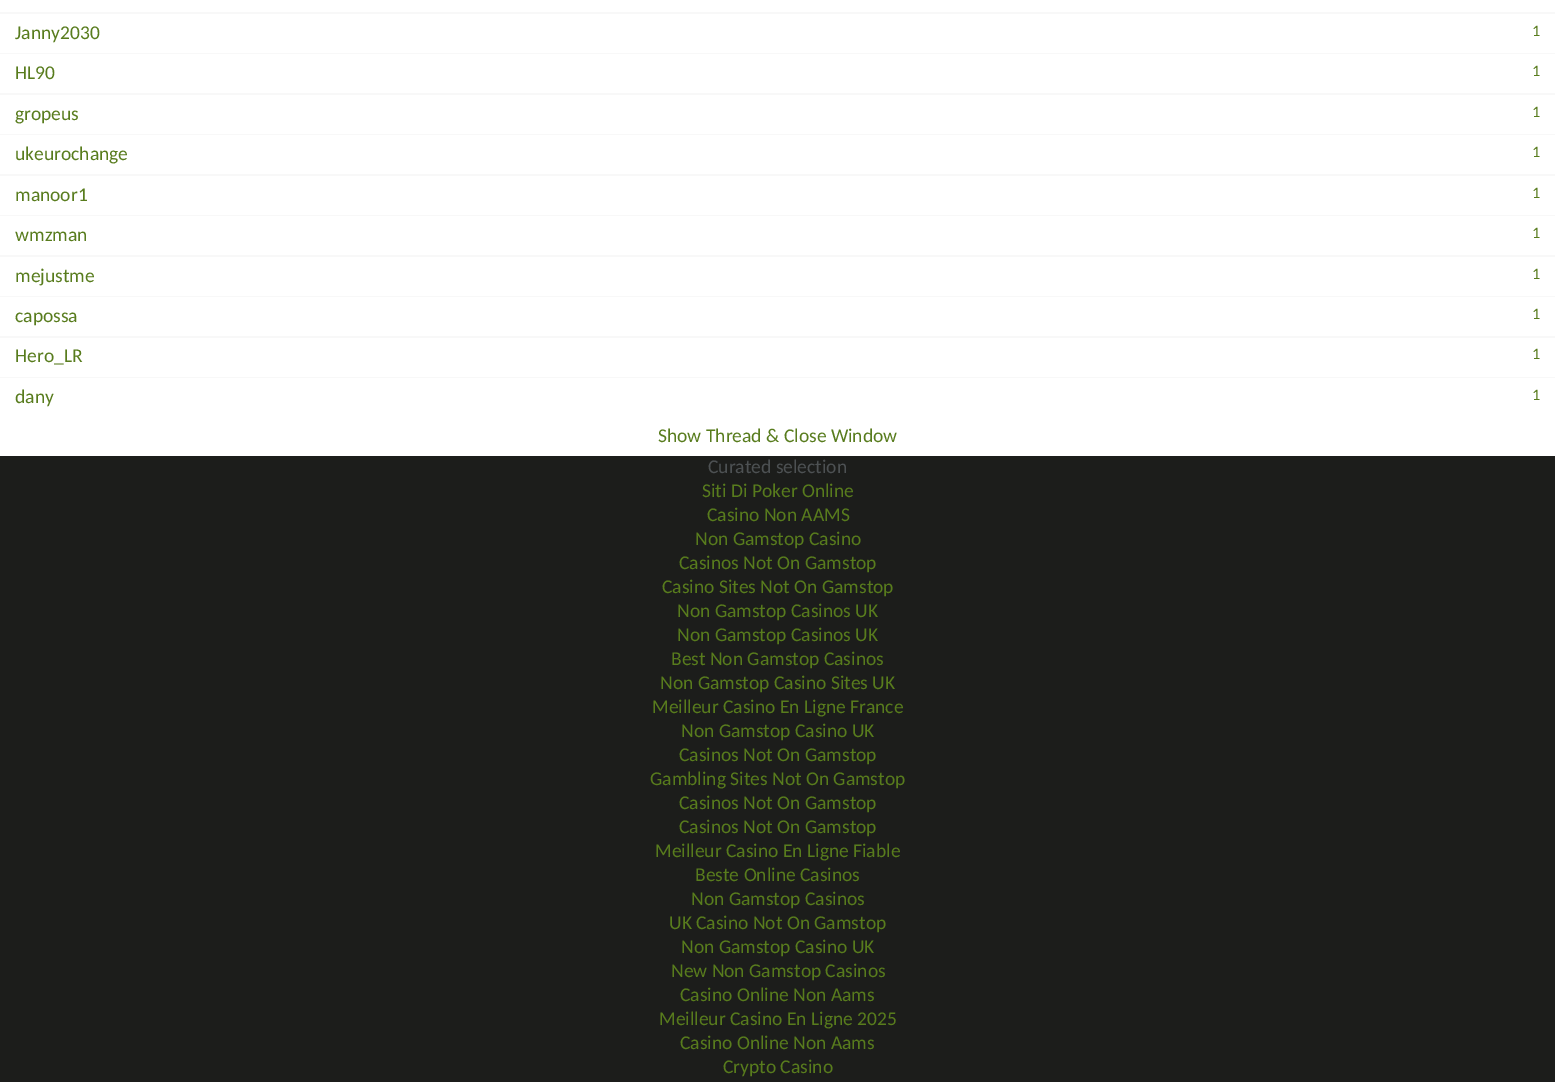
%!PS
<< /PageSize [1555 1082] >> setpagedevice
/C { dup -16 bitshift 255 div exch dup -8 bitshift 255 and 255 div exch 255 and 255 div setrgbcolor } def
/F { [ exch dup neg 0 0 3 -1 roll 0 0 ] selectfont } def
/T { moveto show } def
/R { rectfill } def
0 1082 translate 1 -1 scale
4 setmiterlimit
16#1C1D1B C
0 0 1555 1082 R
16#FFFFFF C
0 0 1555 377 R
16#F8F8F8 C
0 12 1555 2 R
0 53 1555 1 R
/Carlito-Regular 19.5 F
16#587C1D C
(Janny2030) 15 39 T
/Carlito-Regular 16 F
(1) 1532 36 T
16#F8F8F8 C
0 93 1555 2 R
/Carlito-Regular 19.5 F
16#587C1D C
(HL90) 15 79 T
/Carlito-Regular 16 F
(1) 1532 76 T
16#F8F8F8 C
0 134 1555 1 R
/Carlito-Regular 19.5 F
16#587C1D C
(gropeus) 15 120 T
/Carlito-Regular 16 F
(1) 1532 117 T
16#F8F8F8 C
0 174 1555 2 R
/Carlito-Regular 19.5 F
16#587C1D C
(ukeurochange) 15 160 T
/Carlito-Regular 16 F
(1) 1532 157 T
16#F8F8F8 C
0 215 1555 1 R
/Carlito-Regular 19.5 F
16#587C1D C
(manoor1) 15 201 T
/Carlito-Regular 16 F
(1) 1532 198 T
16#F8F8F8 C
0 255 1555 2 R
/Carlito-Regular 19.5 F
16#587C1D C
(wmzman) 15 241 T
/Carlito-Regular 16 F
(1) 1532 238 T
16#F8F8F8 C
0 296 1555 1 R
/Carlito-Regular 19.5 F
16#587C1D C
(mejustme) 15 282 T
/Carlito-Regular 16 F
(1) 1532 279 T
16#F8F8F8 C
0 336 1555 2 R
/Carlito-Regular 19.5 F
16#587C1D C
(capossa) 15 322 T
/Carlito-Regular 16 F
(1) 1532 319 T
16#F8F8F8 C
0 377 1555 1 R
/Carlito-Regular 19.5 F
16#587C1D C
(Hero_LR) 15 362 T
/Carlito-Regular 16 F
(1) 1532 359 T
16#FFFFFF C
0 378 1555 78 R
/Carlito-Regular 19.5 F
16#587C1D C
(dany) 15 403 T
/Carlito-Regular 16 F
(1) 1532 400 T
/Carlito-Regular 19.5 F
(Show Thread & Close Window) 658 442 T
16#4D5153 C
(Curated selection) 708 473 T
16#587C1D C
(Siti Di Poker Online) 702 497 T
(Casino Non AAMS) 707 521 T
(Non Gamstop Casino) 695 545 T
(Casinos Not On Gamstop) 679 569 T
(Casino Sites Not On Gamstop) 662 593 T
(Non Gamstop Casinos UK) 677 617 T
(Non Gamstop Casinos UK) 677 641 T
(Best Non Gamstop Casinos) 671 665 T
(Non Gamstop Casino Sites UK) 660 689 T
(Meilleur Casino En Ligne France) 652 713 T
(Non Gamstop Casino UK) 681 737 T
(Casinos Not On Gamstop) 679 761 T
(Gambling Sites Not On Gamstop) 650 785 T
(Casinos Not On Gamstop) 679 809 T
(Casinos Not On Gamstop) 679 833 T
(Meilleur Casino En Ligne Fiable) 655 857 T
(Beste Online Casinos) 695 881 T
(Non Gamstop Casinos) 691 905 T
(UK Casino Not On Gamstop) 669 929 T
(Non Gamstop Casino UK) 681 953 T
(New Non Gamstop Casinos) 671 977 T
(Casino Online Non Aams) 680 1001 T
(Meilleur Casino En Ligne 2025) 659 1025 T
(Casino Online Non Aams) 680 1049 T
(Crypto Casino) 723 1073 T
showpage
